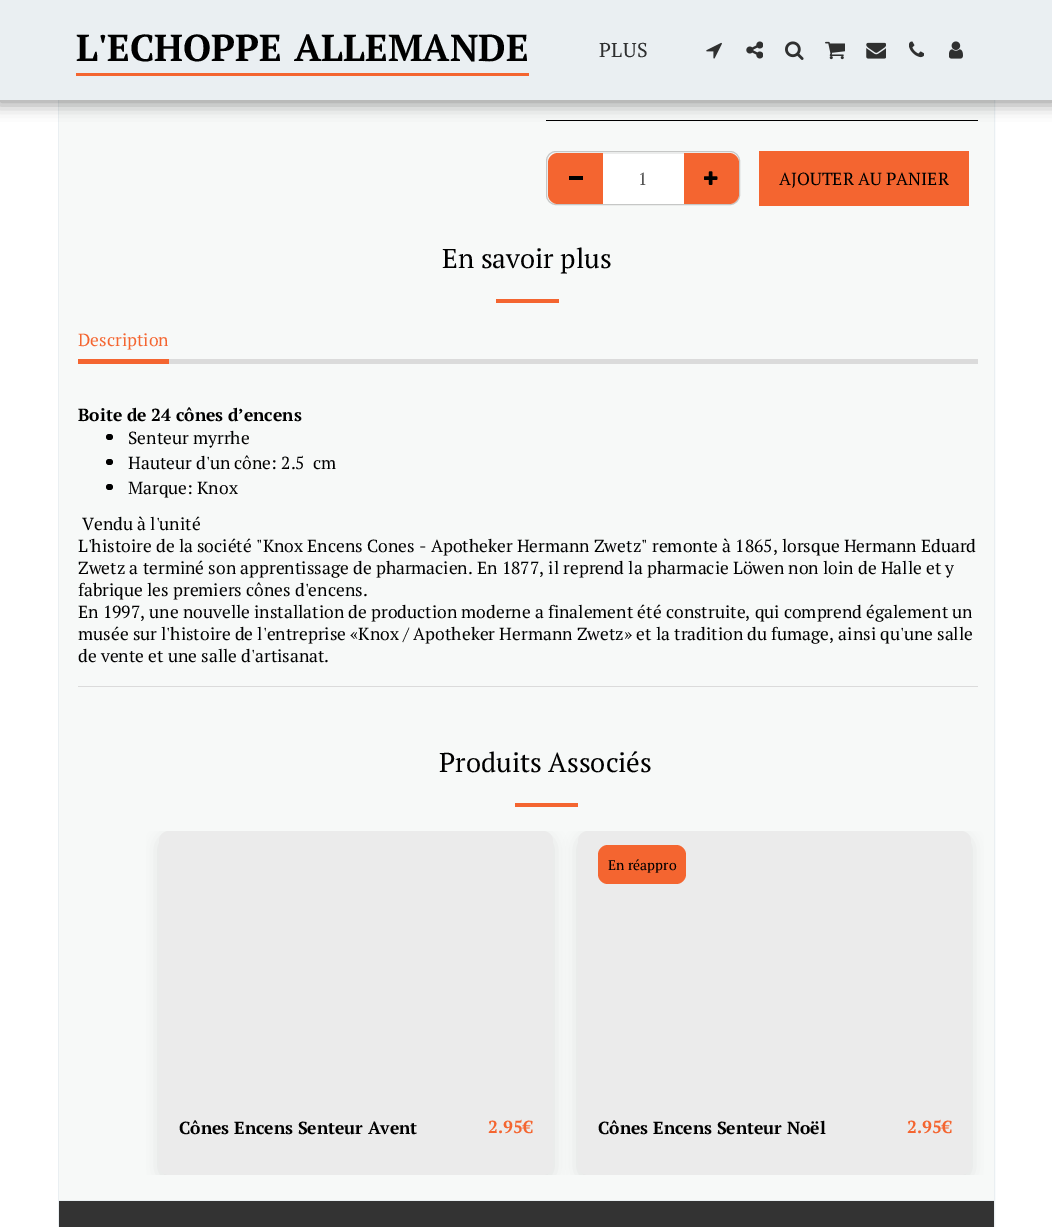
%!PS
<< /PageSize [1052 1227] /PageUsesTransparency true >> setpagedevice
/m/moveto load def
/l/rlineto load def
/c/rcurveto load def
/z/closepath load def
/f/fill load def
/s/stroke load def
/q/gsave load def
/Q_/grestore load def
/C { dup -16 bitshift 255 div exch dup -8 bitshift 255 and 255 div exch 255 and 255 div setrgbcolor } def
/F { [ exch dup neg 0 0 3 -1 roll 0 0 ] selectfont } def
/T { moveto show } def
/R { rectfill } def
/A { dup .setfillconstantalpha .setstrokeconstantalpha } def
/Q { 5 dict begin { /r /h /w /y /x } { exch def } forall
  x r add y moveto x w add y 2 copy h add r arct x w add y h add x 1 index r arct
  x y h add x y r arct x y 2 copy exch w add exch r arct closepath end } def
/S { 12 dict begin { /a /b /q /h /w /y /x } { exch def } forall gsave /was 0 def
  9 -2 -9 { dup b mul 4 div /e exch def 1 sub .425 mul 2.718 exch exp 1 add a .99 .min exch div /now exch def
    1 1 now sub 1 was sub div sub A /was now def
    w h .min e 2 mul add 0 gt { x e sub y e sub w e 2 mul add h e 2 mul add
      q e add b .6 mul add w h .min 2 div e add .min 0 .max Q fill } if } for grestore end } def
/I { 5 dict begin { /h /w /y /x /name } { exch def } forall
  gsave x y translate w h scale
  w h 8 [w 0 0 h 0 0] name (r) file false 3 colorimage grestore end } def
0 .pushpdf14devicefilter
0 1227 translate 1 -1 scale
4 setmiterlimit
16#FFFFFF C
0 0 1052 1227 R
16#EAEFF2 C
58.5 -.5 936 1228 rectstroke
16#F7F9F8 C
59 100 935 1100 R
16#000000 C
546 120 432 1 R
-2 0 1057 105 0 7.5 .35 S
16#EAEFF2 C
0 0 1052 100 R
16#F46530 C
76 73 453 3 R
/PTSerif-Bold 37.5 F
16#000000 C
76 61 m 2 0 32 (L'ECHOPPE ALLEMANDE) widthshow
/PTSerif-Regular 20 F
16#2F3030 C
599 57 m .5 0 (PLUS) ashow
(1.rgb) 706 42 16 17 I
(2.rgb) 746 41 17 18 I
(3.rgb) 785 41 19 19 I
(4.rgb) 825 41 20 19 I
(5.rgb) 866 42 20 17 I
(6.rgb) 909 41 15 17 I
(7.rgb) 949 41 14 18 I
16#C6C7C6 C
546.5 151.5 193 53 9.5 Q s
16#F46530 C
558 153 m 46 0 l 0 51 l -46 0 l -5.5 0 -10 -4.5 -10 -10 c 0 -31 l 0 -5.5 4.5 -10 10 -10 c z f
16#000000 C
569 176 14 4 R
16#F46530 C
683 153 m 46 0 l 5.5 0 10 4.5 10 10 c 0 31 l 0 5.5 -4.5 10 -10 10 c -46 0 l z f
16#FFFFFF C
603 154 81 50 R
16#ECECEC C
603 153 81 1 R
/PTSerif-Regular 17.5 F
16#555555 C
(1) 638 185 T
(8.rgb) 704 171 14 14 I
16#F46530 C
759 151 210 55 R
16#000000 C
(AJOUTER AU PANIER) 779 185 T
/PTSerif-Regular 27.25 F
(En savoir plus) 442 268 T
16#F46530 C
496 299 63 4 R
16#DBDBDB C
169 359 809 5 R
16#F46530 C
78 359 91 5 R
/PTSerif-Regular 17.5 F
(Description) 78 346 T
16#DBDBDB C
78 686 900 1 R
/PTSerif-Bold 17.5 F
16#000000 C
(Boite de 24 cônes d’encens) 78 421 T
106 434 7 6 3 Q f
/PTSerif-Regular 17.5 F
(Senteur myrrhe) 128 444 T
106 459 7 6 3 Q f
(Hauteur d'un cône: 2.5  cm) 128 469 T
106 484 7 6 3 Q f
(Marque: Knox) 128 494 T
(Vendu à l'unité) 82 530 T
(L'histoire de la société "Knox Encens Cones - Apotheker Hermann Zwetz" remonte à 1865, lorsque Hermann Eduard) 78 552 T
(Zwetz a terminé son apprentissage de pharmacien. En 1877, il reprend la pharmacie Löwen non loin de Halle et y) 78 574 T
(fabrique les premiers cônes d'encens.) 78 596 T
(En 1997, une nouvelle installation de production moderne a finalement été construite, qui comprend également un) 78 618 T
(musée sur l'histoire de l'entreprise «Knox / Apotheker Hermann Zwetz» et la tradition du fumage, ainsi qu'une salle) 78 640 T
(de vente et une salle d'artisanat.) 78 662 T
/PTSerif-Regular 27.25 F
(Produits Associés) 439 772 T
16#F46530 C
515 803 63 4 R
16#333333 C
59 1201 935 26 R
16#EAEFF2 C
59 1200 935 1 R
q
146 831 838 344 rectclip
16#818181 C
159 836 394 344 10 7.5 .2 S
Q_
16#EBEBEB C
159 831 394 344 10 Q f
/PTSerif-Bold 17.5 F
16#000000 C
(Cônes Encens Senteur Avent) 179 1134 T
16#F46530 C
(2.95€) 488 1133 T
q
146 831 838 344 rectclip
16#818181 C
578 836 393 344 10 7.5 .2 S
Q_
16#EBEBEB C
578 831 393 344 10 Q f
16#F46530 C
598 845 88 39 10 Q f
/PTSerif-Regular 14 F
16#000000 C
(En réappro) 608 870 T
/PTSerif-Bold 17.5 F
(Cônes Encens Senteur Noël) 598 1134 T
16#F46530 C
(2.95€) 907 1133 T
.poppdf14devicefilter showpage
